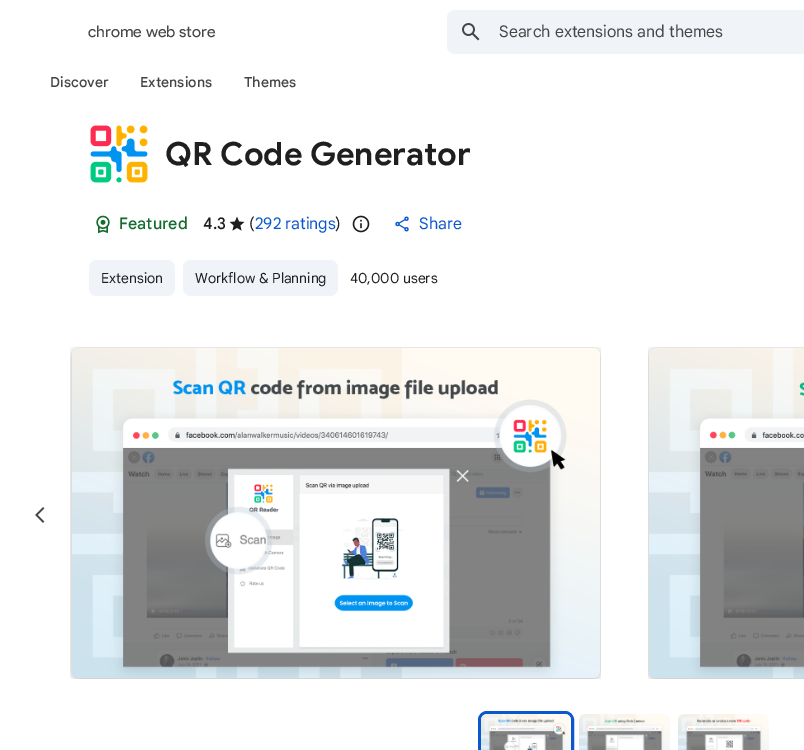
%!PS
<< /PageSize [804 750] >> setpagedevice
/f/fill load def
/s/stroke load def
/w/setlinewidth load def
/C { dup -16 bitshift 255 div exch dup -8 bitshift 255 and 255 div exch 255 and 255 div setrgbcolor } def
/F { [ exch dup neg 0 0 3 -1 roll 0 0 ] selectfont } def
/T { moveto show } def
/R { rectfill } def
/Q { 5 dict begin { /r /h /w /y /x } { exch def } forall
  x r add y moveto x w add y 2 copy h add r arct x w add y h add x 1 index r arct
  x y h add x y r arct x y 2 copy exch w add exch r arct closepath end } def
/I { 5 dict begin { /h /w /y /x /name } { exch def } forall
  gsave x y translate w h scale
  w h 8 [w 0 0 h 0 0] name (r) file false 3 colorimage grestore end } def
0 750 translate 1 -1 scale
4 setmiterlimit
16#FFFFFF C
0 0 804 750 R
(1.rgb) 61 21 6 1 I
/ProductSans-Regular 16 F
16#444746 C
(chrome web store) 88 37 T
16#F0F4F9 C
447 10 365 44 8 Q f
(2.rgb) 462 23 18 18 I
/GoogleSans-Regular 16 F
16#444746 C
(Search extensions and themes) 499 37 T
/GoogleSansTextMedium-Medium 14 F
(Discover) 50 87 T
(Extensions) 140 87 T
(Themes) 244 87 T
(3.rgb) 90 125 58 58 I
/GoogleSans-Bold 32 F
16#1F1F1F C
(QR Code Generator) 165 165 T
(4.rgb) 96 215 14 19 I
/GoogleSans-Medium 16 F
16#146C2E C
(Featured) 119 229 T
16#1F1F1F C
(4.3) 203 229 T
(5.rgb) 229 216 16 15 I
/GoogleSans-Regular 16 F
(\() 249 229 T
16#0B57D0 C
(292 ratings) 255 229 T
16#1F1F1F C
(\)) 335 229 T
(6.rgb) 352 215 18 18 I
(7.rgb) 395 216 14 16 I
/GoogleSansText-Regular 16 F
16#0B57D0 C
(Share) 419 229 T
16#F0F4F9 C
89 260 86 36 8 Q f
/GoogleSans-Regular 14 F
16#1F1F1F C
(Extension) 101 283 T
16#F0F4F9 C
183 260 155 36 8 Q f
16#1F1F1F C
(Workflow & Planning) 195 283 T
(40,000 users) 350 283 T
(8.rgb) 35 507 10 16 I
(9.rgb) 70 347 531 332 I
(10.rgb) 648 347 156 332 I
16#0B57D0 C
3 w
479.5 712.5 93 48 7.5 Q s
(11.rgb) 481 714 90 36 I
(12.rgb) 579 714 91 36 I
(13.rgb) 678 714 91 36 I
showpage
